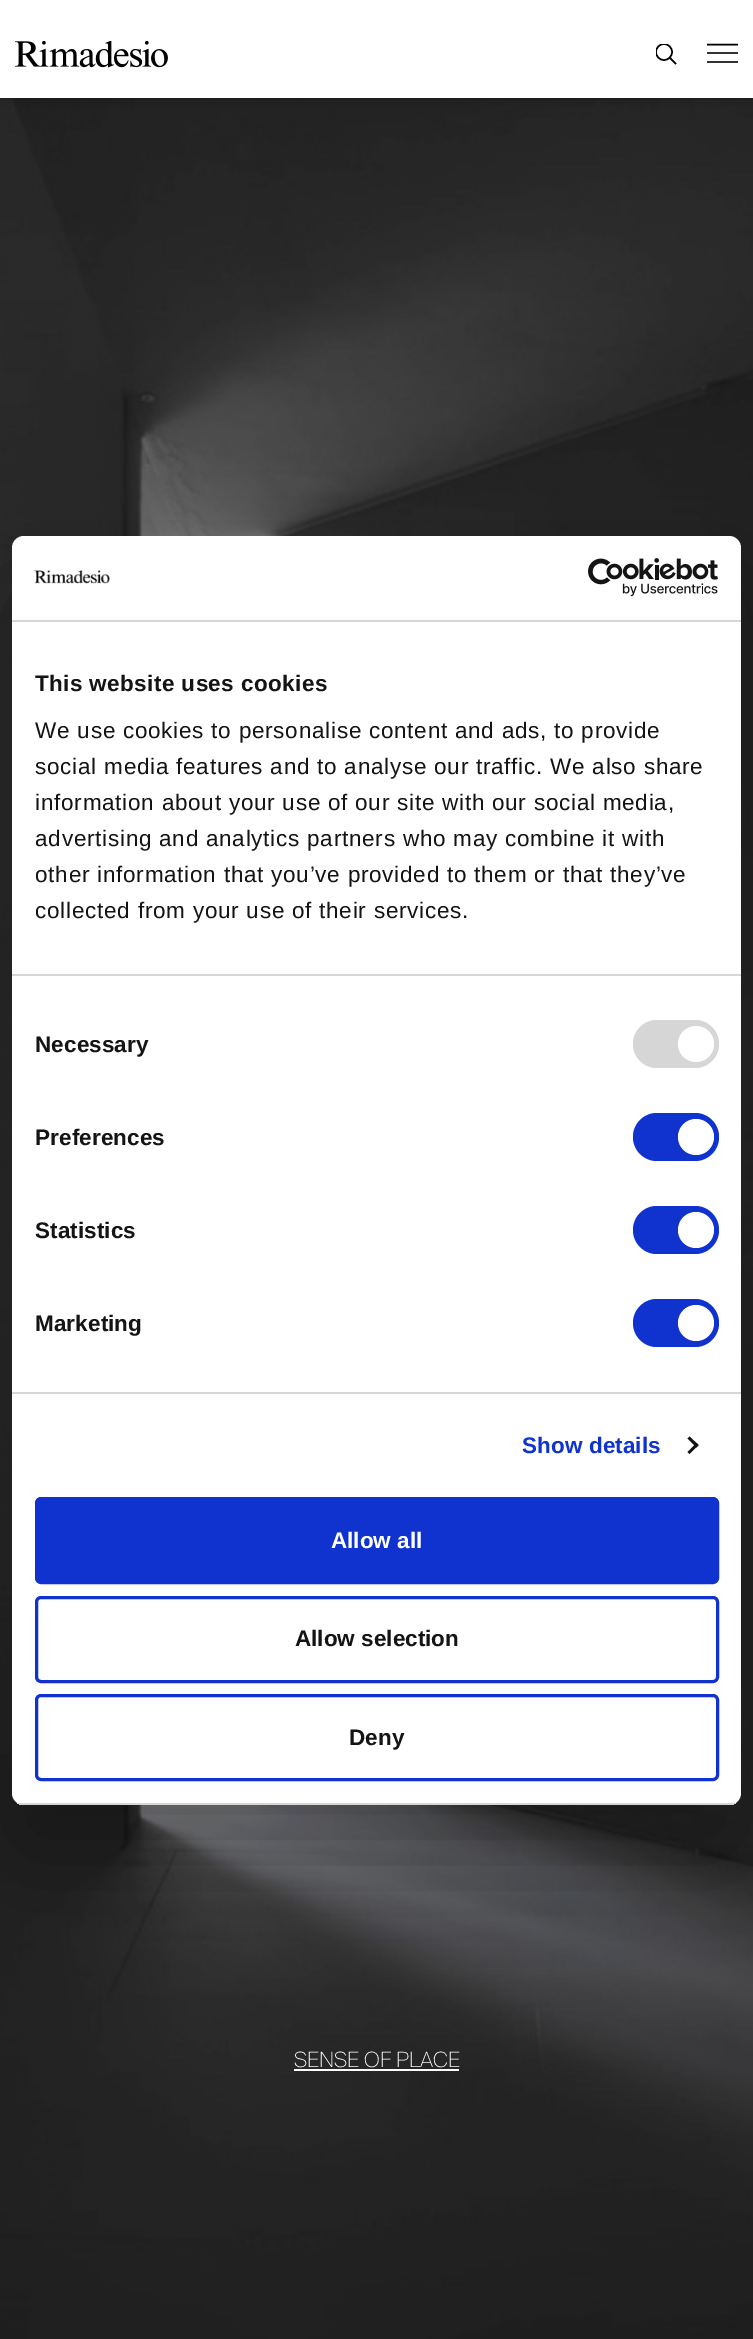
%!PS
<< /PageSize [753 2339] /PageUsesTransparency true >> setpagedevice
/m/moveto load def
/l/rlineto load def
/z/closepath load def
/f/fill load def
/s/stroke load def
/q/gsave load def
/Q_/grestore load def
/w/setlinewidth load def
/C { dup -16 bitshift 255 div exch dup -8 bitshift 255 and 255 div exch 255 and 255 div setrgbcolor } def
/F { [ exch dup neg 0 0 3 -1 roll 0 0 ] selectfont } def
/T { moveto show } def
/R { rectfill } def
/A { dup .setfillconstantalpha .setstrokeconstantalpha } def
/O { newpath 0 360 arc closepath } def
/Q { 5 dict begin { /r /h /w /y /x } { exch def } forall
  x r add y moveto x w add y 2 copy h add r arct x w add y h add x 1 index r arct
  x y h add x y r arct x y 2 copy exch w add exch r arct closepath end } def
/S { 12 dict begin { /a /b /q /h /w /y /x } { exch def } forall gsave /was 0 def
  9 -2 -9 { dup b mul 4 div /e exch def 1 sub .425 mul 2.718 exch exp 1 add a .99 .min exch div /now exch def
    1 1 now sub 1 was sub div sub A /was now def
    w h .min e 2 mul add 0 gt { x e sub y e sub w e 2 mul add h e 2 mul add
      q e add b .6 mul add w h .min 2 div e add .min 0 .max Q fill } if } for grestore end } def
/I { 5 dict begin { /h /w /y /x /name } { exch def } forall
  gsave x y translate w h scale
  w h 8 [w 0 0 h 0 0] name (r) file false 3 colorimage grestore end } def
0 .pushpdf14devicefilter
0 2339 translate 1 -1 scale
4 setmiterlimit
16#FFFFFF C
0 0 753 2339 R
(4.rgb) 0 98 753 2241 I
16#000000 C
0 5 753 97 0 7.5 .1 S
16#FFFFFF C
0 0 753 98 R
(1.rgb) 15 41 153 27 I
q
656 44 21 21 rectclip
16#000000 C
1.5 w
664 52 8 O s
Q_
16#000000 C
1.5 w
669.5 57.5 m 6.5 6.5 l s
16#333333 C
707 52 31 2 R
q
707 41 31 25 rectclip
16#000000 C
1.6 w
706.5 44.5 m 31.5 0 l s
Q_
707 61 31 2 R
16#000000 C
12 584 729 1269 12 51 .3 S
16#FFFFFF C
12 536 729 1269 12 Q f
16#D6D6D6 C
12 620 729 2 R
(2.rgb) 34 570 76 14 I
(3.rgb) 588 558 130 39 I
12 974 729 2 R
/LiberationSans-Bold 22.5 F
16#141414 C
35 691 m .4 0 (This website uses cookies) ashow
/LiberationSans-Regular 22.5 F
35 738 m .75 0 (We use cookies to personalise content and ads, to provide) ashow
35 774 m .75 0 (social media features and to analyse our traffic. We also share) ashow
35 810 m .75 0 (information about your use of our site with our social media,) ashow
35 846 m .75 0 (advertising and analytics partners who may combine it with) ashow
35 882 m .75 0 (other information that you’ve provided to them or that they’ve) ashow
35 918 m .75 0 (collected from your use of their services.) ashow
16#D6D6D6 C
12 1392 729 2 R
/LiberationSans-Bold 22.5 F
16#141414 C
35 1052 m .1 0 (Necessary) ashow
16#D6D6D6 C
633 1020 86 48 24 Q f
16#FFFFFF C
696 1044 18 O f
16#141414 C
35 1145 m .1 0 (Preferences) ashow
16#1032CF C
633 1113 86 48 24 Q f
16#FFFFFF C
696 1137 18 O f
16#141414 C
35 1238 m .1 0 (Statistics) ashow
16#1032CF C
633 1206 86 48 24 Q f
16#FFFFFF C
696 1230 18 O f
16#141414 C
35 1331 m .1 0 (Marketing) ashow
16#1032CF C
633 1299 86 48 24 Q f
16#FFFFFF C
696 1323 18 O f
16#1032CF C
522 1453 m .1 0 (Show details) ashow
16#141414 C
689.5 1436.5 m 9 8.5 l -2 2.5 l -9 -9 l z f
696.5 1443 m 2 2 l -9 9 l -2 -2 l z f
q
12 536 729 1269 12 Q clip newpath
16#D6D6D6 C
12 1803 729 2 R
Q_
16#1032CF C
36.5 1498.5 681 84 4.5 Q q f Q_
3 w
s
16#FFFFFF C
(Allow all) 331 1548 T
16#1032CF C
36.5 1597.5 681 84 4.5 Q s
16#141414 C
(Allow selection) 295 1646 T
16#1032CF C
36.5 1695.5 681 84 4.5 Q s
16#141414 C
(Deny) 349 1745 T
/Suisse-Light 21 F
16#FFFFFF C
(SENSE OF PLACE) 294 2067 T
294 2069 165 2 R
.poppdf14devicefilter showpage
